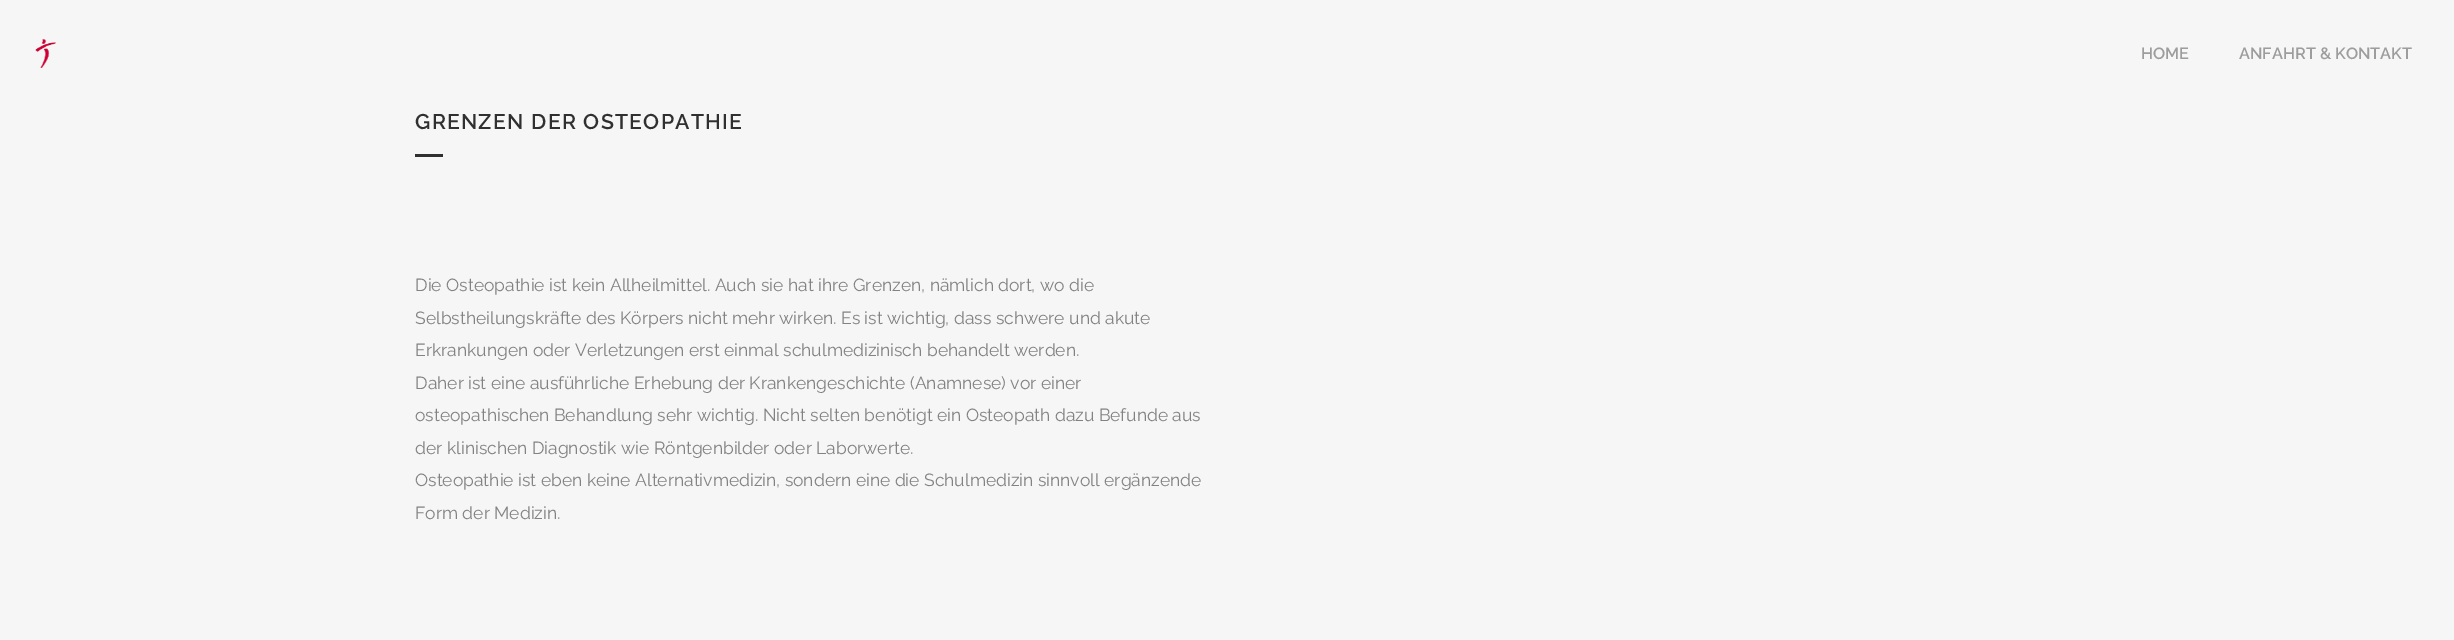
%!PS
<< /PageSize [2454 640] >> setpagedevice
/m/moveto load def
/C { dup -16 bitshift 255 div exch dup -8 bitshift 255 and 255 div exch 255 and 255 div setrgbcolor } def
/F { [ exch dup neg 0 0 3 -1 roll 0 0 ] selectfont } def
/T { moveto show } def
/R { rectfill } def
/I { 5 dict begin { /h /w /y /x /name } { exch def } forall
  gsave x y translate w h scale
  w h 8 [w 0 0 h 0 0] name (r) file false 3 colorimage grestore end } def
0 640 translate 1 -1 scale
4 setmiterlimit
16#F6F6F6 C
0 0 2454 640 R
(1.rgb) 35 39 21 29 I
/Raleway-SemiBold 16.25 F
16#9D9D9D C
(HOME) 2141 59 T
(ANFAHRT & KONTAKT) 2239 59 T
/Raleway-SemiBold 21.25 F
16#303030 C
415 129 m 1.25 0 (GRENZEN DER OSTEOPATHIE) ashow
415 154 28 3 R
/Raleway-Regular 17.5 F
16#828282 C
(Die Osteopathie ist kein Allheilmittel. Auch sie hat ihre Grenzen, nämlich dort, wo die) 415 291 T
(Selbstheilungskräfte des Körpers nicht mehr wirken. Es ist wichtig, dass schwere und akute) 415 324 T
(Erkrankungen oder Verletzungen erst einmal schulmedizinisch behandelt werden.) 415 356 T
(Daher ist eine ausführliche Erhebung der Krankengeschichte \(Anamnese\) vor einer) 415 389 T
(osteopathischen Behandlung sehr wichtig. Nicht selten benötigt ein Osteopath dazu Befunde aus) 415 421 T
(der klinischen Diagnostik wie Röntgenbilder oder Laborwerte.) 415 454 T
(Osteopathie ist eben keine Alternativmedizin, sondern eine die Schulmedizin sinnvoll ergänzende) 415 486 T
(Form der Medizin.) 415 519 T
showpage
